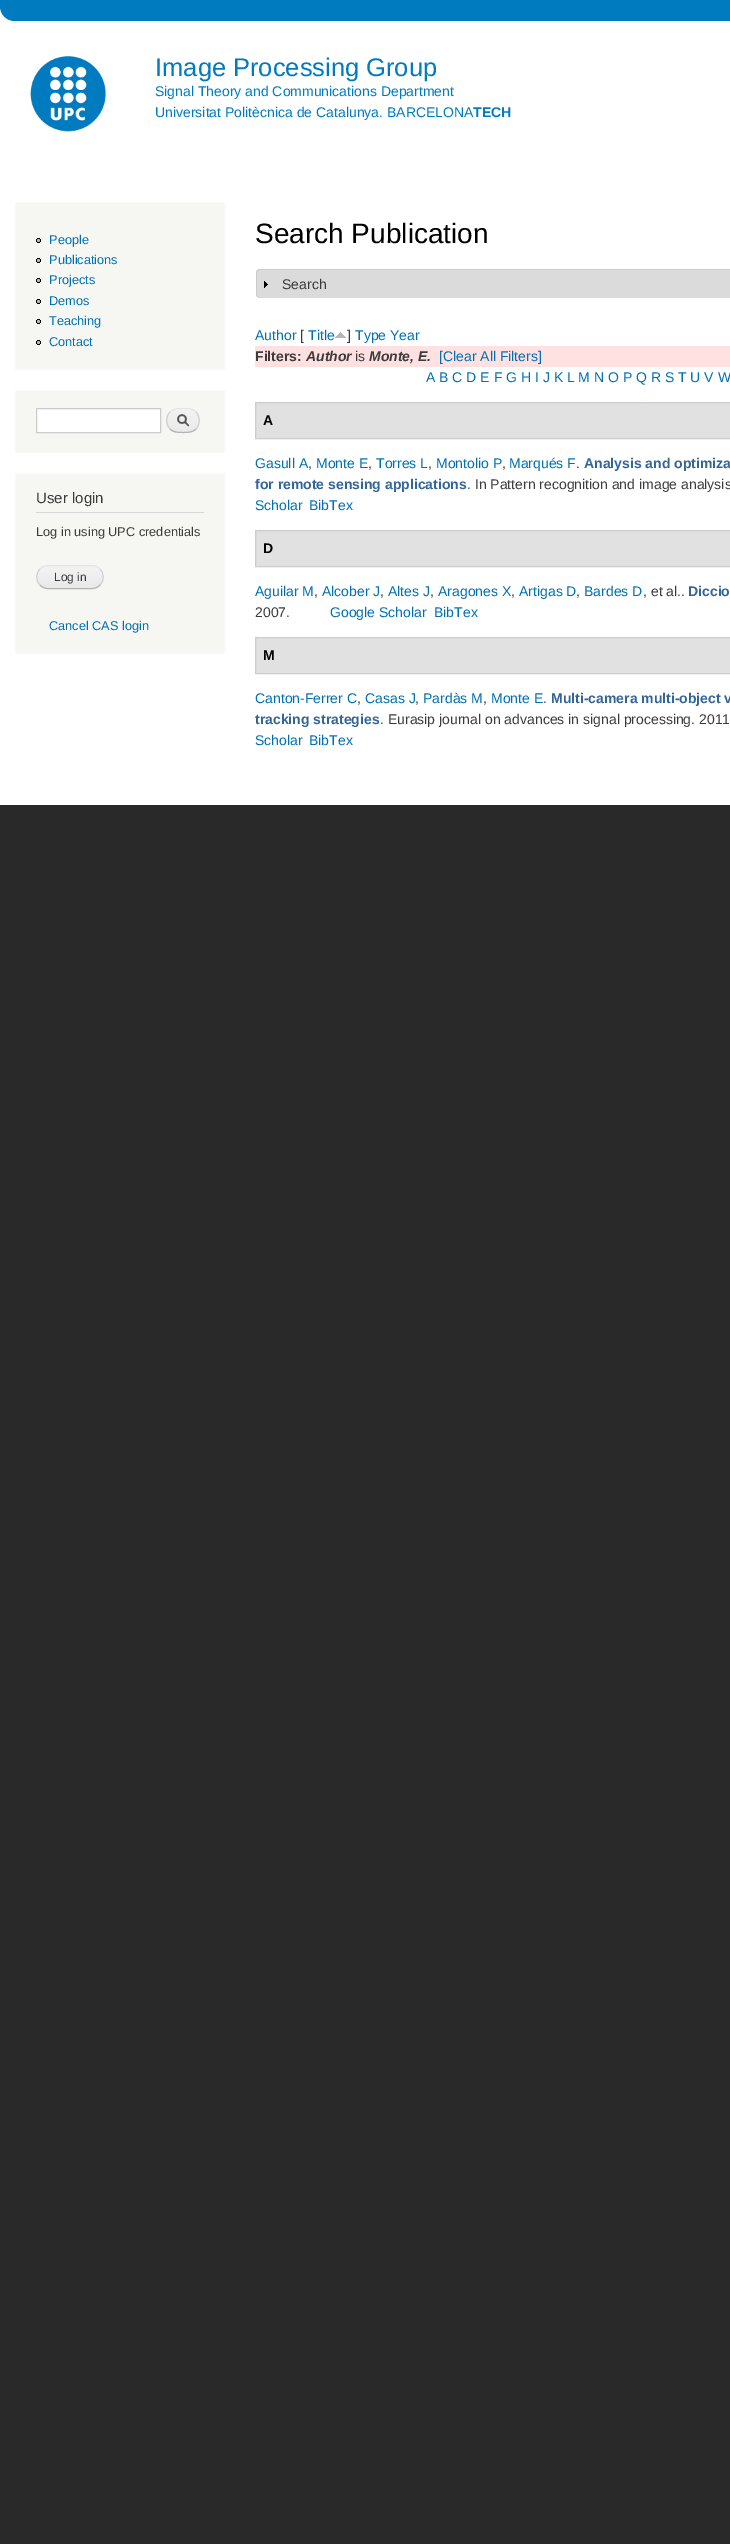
%!PS
<< /PageSize [730 2544] >> setpagedevice
/m/moveto load def
/l/rlineto load def
/c/rcurveto load def
/z/closepath load def
/f/fill load def
/s/stroke load def
/q/gsave load def
/Q_/grestore load def
/C { dup -16 bitshift 255 div exch dup -8 bitshift 255 and 255 div exch 255 and 255 div setrgbcolor } def
/F { [ exch dup neg 0 0 3 -1 roll 0 0 ] selectfont } def
/T { moveto show } def
/R { rectfill } def
/Q { 5 dict begin { /r /h /w /y /x } { exch def } forall
  x r add y moveto x w add y 2 copy h add r arct x w add y h add x 1 index r arct
  x y h add x y r arct x y 2 copy exch w add exch r arct closepath end } def
/I { 5 dict begin { /h /w /y /x /name } { exch def } forall
  gsave x y translate w h scale
  w h 8 [w 0 0 h 0 0] name (r) file false 3 colorimage grestore end } def
0 2544 translate 1 -1 scale
4 setmiterlimit
16#292929 C
0 0 730 2544 R
16#FFFFFF C
0 6 730 799 R
16#007BC0 C
0 0 m 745 0 l 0 6 l 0 8.5 -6.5 15 -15 15 c -715 0 l -8.5 0 -15 -6.5 -15 -15 c z f
(1.rgb) 30 56 76 76 I
/LiberationSans-Regular 25.5 F
(Image Processing Group) 155 76 T
/LiberationSans-Regular 14 F
(Signal Theory and Communications Department) 155 96 T
(Universitat Politècnica de Catalunya. BARCELONA) 155 117 T
/LiberationSans-Bold 14 F
(TECH) 473 117 T
16#F6F6F2 C
15.5 202.5 m 209 0 l 0 167 l -209 0 l z q f Q_
16#F9F9F9 C
s
(2.rgb) 36 238 5 5 I
/LiberationSans-Regular 12.75 F
16#0070B3 C
(People) 49 244 T
(2.rgb) 36 258 5 5 I
(Publications) 49 264 T
(2.rgb) 36 278 5 5 I
(Projects) 49 284 T
(2.rgb) 36 299 5 5 I
(Demos) 49 305 T
(2.rgb) 36 319 5 5 I
(Teaching) 49 325 T
(2.rgb) 36 340 5 5 I
(Contact) 49 346 T
16#F6F6F2 C
15.5 390.5 m 209 0 l 0 62 l -209 0 l z q f Q_
16#F9F9F9 C
s
16#FFFFFF C
36.5 408.5 m 124 0 l 0 24 l -124 0 l z q f Q_
16#CCCCCC C
s
(3.rgb) 166 410 34 23 I
16#E4E4E4 C
170 412 m 3.5 -3.5 8 -3.5 13 -3.5 c 5 0 9.5 0 13 3.5 c s
16#D2D2D2 C
196 412 m 4.5 4.5 4.5 12.5 0 17 c s
16#B4B4B4 C
196 429 m -3.5 3.5 -8 3.5 -13 3.5 c -5 0 -9.5 0 -13 -3.5 c s
16#D2D2D2 C
170 429 m -4.5 -4.5 -4.5 -12.5 0 -17 c s
16#F6F6F2 C
15.5 473.5 m 209 0 l 0 180 l -209 0 l z q f Q_
16#F9F9F9 C
s
16#D6D6D6 C
36 512 168 1 R
/LiberationSans-Regular 15 F
16#3B3B3B C
(User login) 36 503 T
/LiberationSans-Regular 12.75 F
(Log in using UPC credentials) 36 536 T
(4.rgb) 36 566 68 23 I
16#E4E4E4 C
40 569 m 2 -2.5 5 -3.5 8 -3.5 c 44 0 l 3 0 6 1 8 3.5 c s
16#D2D2D2 C
100 569 m 4.5 4.5 4.5 11.5 0 16 c s
16#B4B4B4 C
100 585 m -2 2.5 -5 3.5 -8 3.5 c -44 0 l -3 0 -6 -1 -8 -3.5 c s
16#D2D2D2 C
40 585 m -4.5 -4.5 -4.5 -11.5 0 -16 c s
/LiberationSans-Regular 12 F
16#3B3B3B C
(Log in) 54 581 T
/LiberationSans-Regular 12.75 F
16#0070B3 C
(Cancel CAS login) 49 630 T
/LiberationSans-Regular 28 F
16#000000 C
(Search Publication) 255 243 T
16#DBDBDB C
256 269 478 29 4 Q f
16#CCCCCC C
260 269 m 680 0 l 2 0 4 2 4 4 c 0 21 l 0 2 -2 4 -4 4 c -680 0 l -2 0 -4 -2 -4 -4 c 0 -21 l 0 -2 2 -4 4 -4 c z 260 270 m 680 0 l 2 0 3 1 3 3 c 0 21 l 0 2 -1 4 -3 4 c -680 0 l -2 0 -3 -2 -3 -4 c 0 -21 l 0 -2 1 -3 3 -3 c z eofill
(5.rgb) 264 281 4 7 I
/LiberationSans-Regular 14 F
16#3B3B3B C
(Search) 282 289 T
16#0070B3 C
(Author) 255 340 T
16#3B3B3B C
([) 300 340 T
16#0070B3 C
(Title) 308 340 T
(6.rgb) 335 332 11 6 I
16#3B3B3B C
(]) 347 340 T
16#0070B3 C
(Type Year) 355 340 T
16#FFE1E1 C
255 346 475 21 R
/LiberationSans-Bold 14 F
16#3B3B3B C
(Filters:) 255 361 T
/LiberationSans-BoldItalic 14 F
(Author) 306 361 T
/LiberationSans-Regular 14 F
(is) 355 361 T
/LiberationSans-BoldItalic 14 F
(Monte, E.) 369 361 T
/LiberationSans-Regular 14 F
16#0070B3 C
([Clear All Filters]) 439 361 T
(A B C D E F G H I J K L M N O P Q R S T U V W) 426 382 T
16#E1E1E1 C
255.5 402.5 m 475 0 l 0 36 l -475 0 l z q f Q_
16#CCCCCC C
s
/LiberationSans-Bold 14 F
16#000000 C
(A) 263 425 T
/LiberationSans-Regular 14 F
16#0070B3 C
(Gasull A) 255 468 T
16#3B3B3B C
(,) 308 468 T
16#0070B3 C
(Monte E) 316 468 T
16#3B3B3B C
(,) 368 468 T
16#0070B3 C
(Torres L) 376 468 T
16#3B3B3B C
(,) 428 468 T
16#0070B3 C
(Montolio P) 436 468 T
16#3B3B3B C
(,) 502 468 T
16#0070B3 C
(Marqués F) 509 468 T
16#3B3B3B C
(.) 576 468 T
/LiberationSans-Bold 14 F
16#336599 C
(Analysis and optimiza) 584 468 T
(for remote sensing applications) 255 489 T
/LiberationSans-Regular 14 F
16#3B3B3B C
(. In Pattern recognition and image analysis) 467 489 T
16#0070B3 C
(Scholar) 255 510 T
(BibTex) 309 510 T
16#E1E1E1 C
255.5 530.5 m 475 0 l 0 36 l -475 0 l z q f Q_
16#CCCCCC C
s
/LiberationSans-Bold 14 F
16#000000 C
(D) 263 553 T
/LiberationSans-Regular 14 F
16#0070B3 C
(Aguilar M) 255 596 T
16#3B3B3B C
(,) 314 596 T
16#0070B3 C
(Alcober J) 322 596 T
16#3B3B3B C
(,) 380 596 T
16#0070B3 C
(Altes J) 388 596 T
16#3B3B3B C
(,) 430 596 T
16#0070B3 C
(Aragones X) 438 596 T
16#3B3B3B C
(,) 511 596 T
16#0070B3 C
(Artigas D) 519 596 T
16#3B3B3B C
(,) 576 596 T
16#0070B3 C
(Bardes D) 584 596 T
16#3B3B3B C
(, et al..) 643 596 T
/LiberationSans-Bold 14 F
16#336599 C
(Diccio) 688 596 T
/LiberationSans-Regular 14 F
16#3B3B3B C
(2007.) 255 617 T
16#0070B3 C
(Google Scholar) 330 617 T
(BibTex) 434 617 T
16#E1E1E1 C
255.5 637.5 m 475 0 l 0 36 l -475 0 l z q f Q_
16#CCCCCC C
s
/LiberationSans-Bold 14 F
16#000000 C
(M) 263 660 T
/LiberationSans-Regular 14 F
16#0070B3 C
(Canton-Ferrer C) 255 703 T
16#3B3B3B C
(,) 357 703 T
16#0070B3 C
(Casas J) 365 703 T
16#3B3B3B C
(,) 415 703 T
16#0070B3 C
(Pardàs M) 423 703 T
16#3B3B3B C
(,) 483 703 T
16#0070B3 C
(Monte E) 491 703 T
16#3B3B3B C
(.) 543 703 T
/LiberationSans-Bold 14 F
16#336599 C
(Multi-camera multi-object v) 551 703 T
(tracking strategies) 255 724 T
/LiberationSans-Regular 14 F
16#3B3B3B C
(. Eurasip journal on advances in signal processing. 2011) 380 724 T
16#0070B3 C
(Scholar) 255 745 T
(BibTex) 309 745 T
showpage
